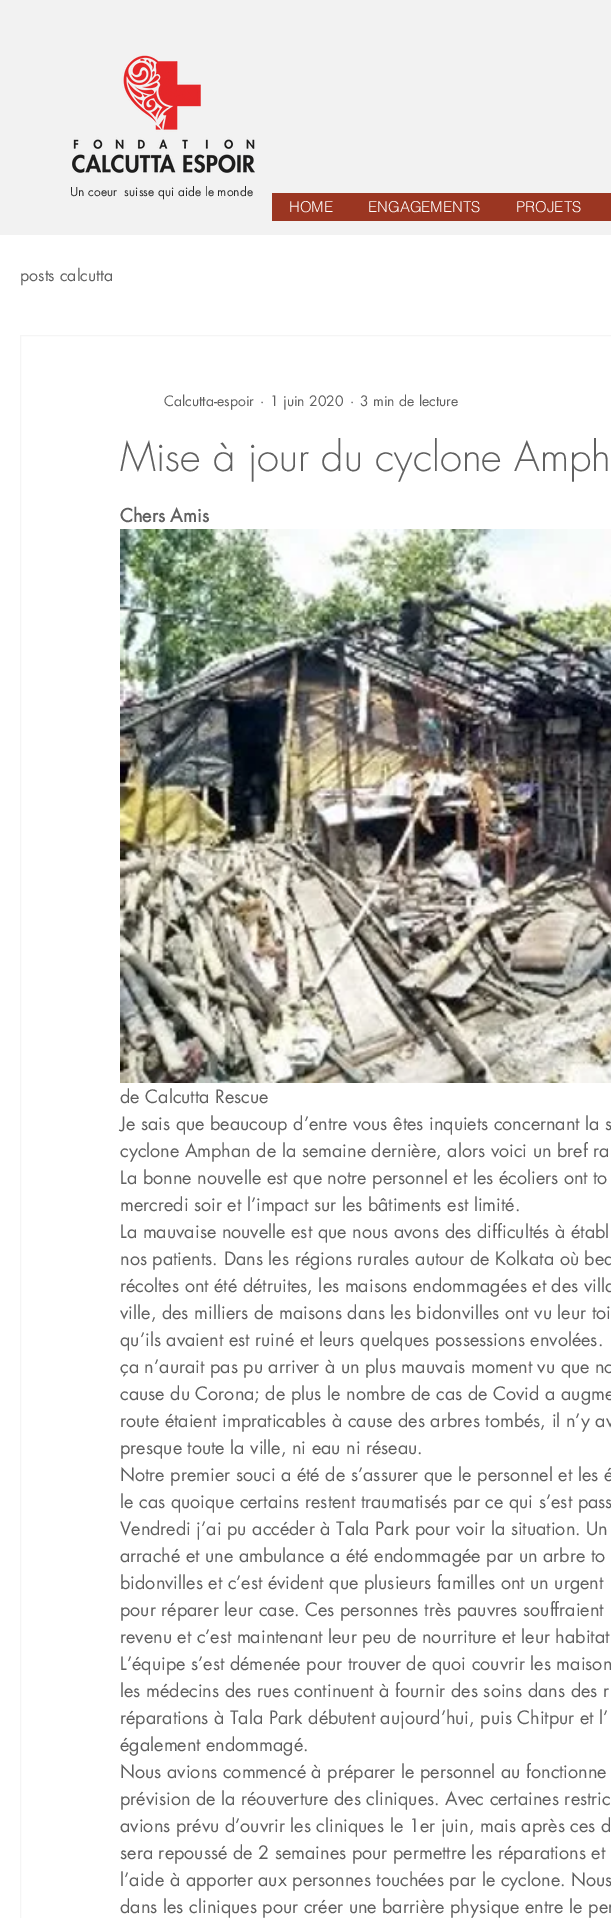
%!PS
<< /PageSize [611 1918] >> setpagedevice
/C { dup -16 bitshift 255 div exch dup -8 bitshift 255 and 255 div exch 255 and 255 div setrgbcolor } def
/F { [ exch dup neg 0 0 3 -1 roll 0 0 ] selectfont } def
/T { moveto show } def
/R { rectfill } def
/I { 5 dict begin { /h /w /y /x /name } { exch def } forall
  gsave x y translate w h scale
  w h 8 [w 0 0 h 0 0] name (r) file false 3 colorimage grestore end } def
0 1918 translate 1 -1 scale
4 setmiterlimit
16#FFFFFF C
0 0 611 1918 R
16#F2F2F2 C
0 0 611 235 R
(1.rgb) 72 55 183 118 I
/futura-Regular 12 F
16#292929 C
(Un coeur  suisse qui aide le monde) 70 196 T
16#9B3622 C
272 193 339 28 R
/helvetica-Light 15 F
16#FFFFFF C
(HOME) 289 212 T
(ENGAGEMENTS) 368 212 T
(PROJETS) 516 212 T
/futura-Regular 16 F
16#606060 C
(posts calcutta) 20 281 T
16#F5F5F5 C
20.5 335.5 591 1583 rectstroke
/futura-Regular 14 F
16#606060 C
(Calcutta-espoir) 164 406 T
(·) 260 406 T
(1 juin 2020) 270 406 T
(·) 350 406 T
(3 min de lecture) 360 406 T
/futura-Light 40 F
(Mise à jour du cyclone Amph) 120 471 T
/futura-Bold 18 F
(Chers Amis) 120 522 T
(2.rgb) 120 529 491 554 I
/futura-Regular 18 F
(de Calcutta Rescue) 120 1103 T
(Je sais que beaucoup d’entre vous êtes inquiets concernant la s) 120 1130 T
(cyclone Amphan de la semaine dernière, alors voici un bref ra) 120 1157 T
(La bonne nouvelle est que notre personnel et les écoliers ont to) 120 1184 T
(mercredi soir et l’impact sur les bâtiments est limité.) 120 1211 T
(La mauvaise nouvelle est que nous avons des difficultés à établ) 120 1238 T
(nos patients. Dans les régions rurales autour de Kolkata où bea) 120 1265 T
(récoltes ont été détruites, les maisons endommagées et des villa) 120 1292 T
(ville, des milliers de maisons dans les bidonvilles ont vu leur toi) 120 1319 T
(qu’ils avaient est ruiné et leurs quelques possessions envolées.) 120 1346 T
(ça n’aurait pas pu arriver à un plus mauvais moment vu que no) 120 1373 T
(cause du Corona; de plus le nombre de cas de Covid a augme) 120 1400 T
(route étaient impraticables à cause des arbres tombés, il n’y av) 120 1427 T
(presque toute la ville, ni eau ni réseau.) 120 1454 T
(Notre premier souci a été de s’assurer que le personnel et les é) 120 1481 T
(le cas quoique certains restent traumatisés par ce qui s’est pass) 120 1508 T
(Vendredi j’ai pu accéder à Tala Park pour voir la situation. Un) 120 1535 T
(arraché et une ambulance a été endommagée par un arbre to) 120 1562 T
(bidonvilles et c’est évident que plusieurs familles ont un urgent) 120 1589 T
(pour réparer leur case. Ces personnes très pauvres souffraient) 120 1616 T
(revenu et c’est maintenant leur peu de nourriture et leur habitat) 120 1643 T
(L’équipe s’est démenée pour trouver de quoi couvrir les maison) 120 1670 T
(les médecins des rues continuent à fournir des soins dans des r) 120 1697 T
(réparations à Tala Park débutent aujourd’hui, puis Chitpur et l’) 120 1724 T
(également endommagé.) 120 1751 T
(Nous avions commencé à préparer le personnel au fonctionne) 120 1778 T
(prévision de la réouverture des cliniques. Avec certaines restric) 120 1805 T
(avions prévu d’ouvrir les cliniques le 1er juin, mais après ces d) 120 1832 T
(sera repoussé de 2 semaines pour permettre les réparations et) 120 1859 T
(l’aide à apporter aux personnes touchées par le cyclone. Nous) 120 1886 T
(dans les cliniques pour créer une barrière physique entre le per) 120 1913 T
showpage
